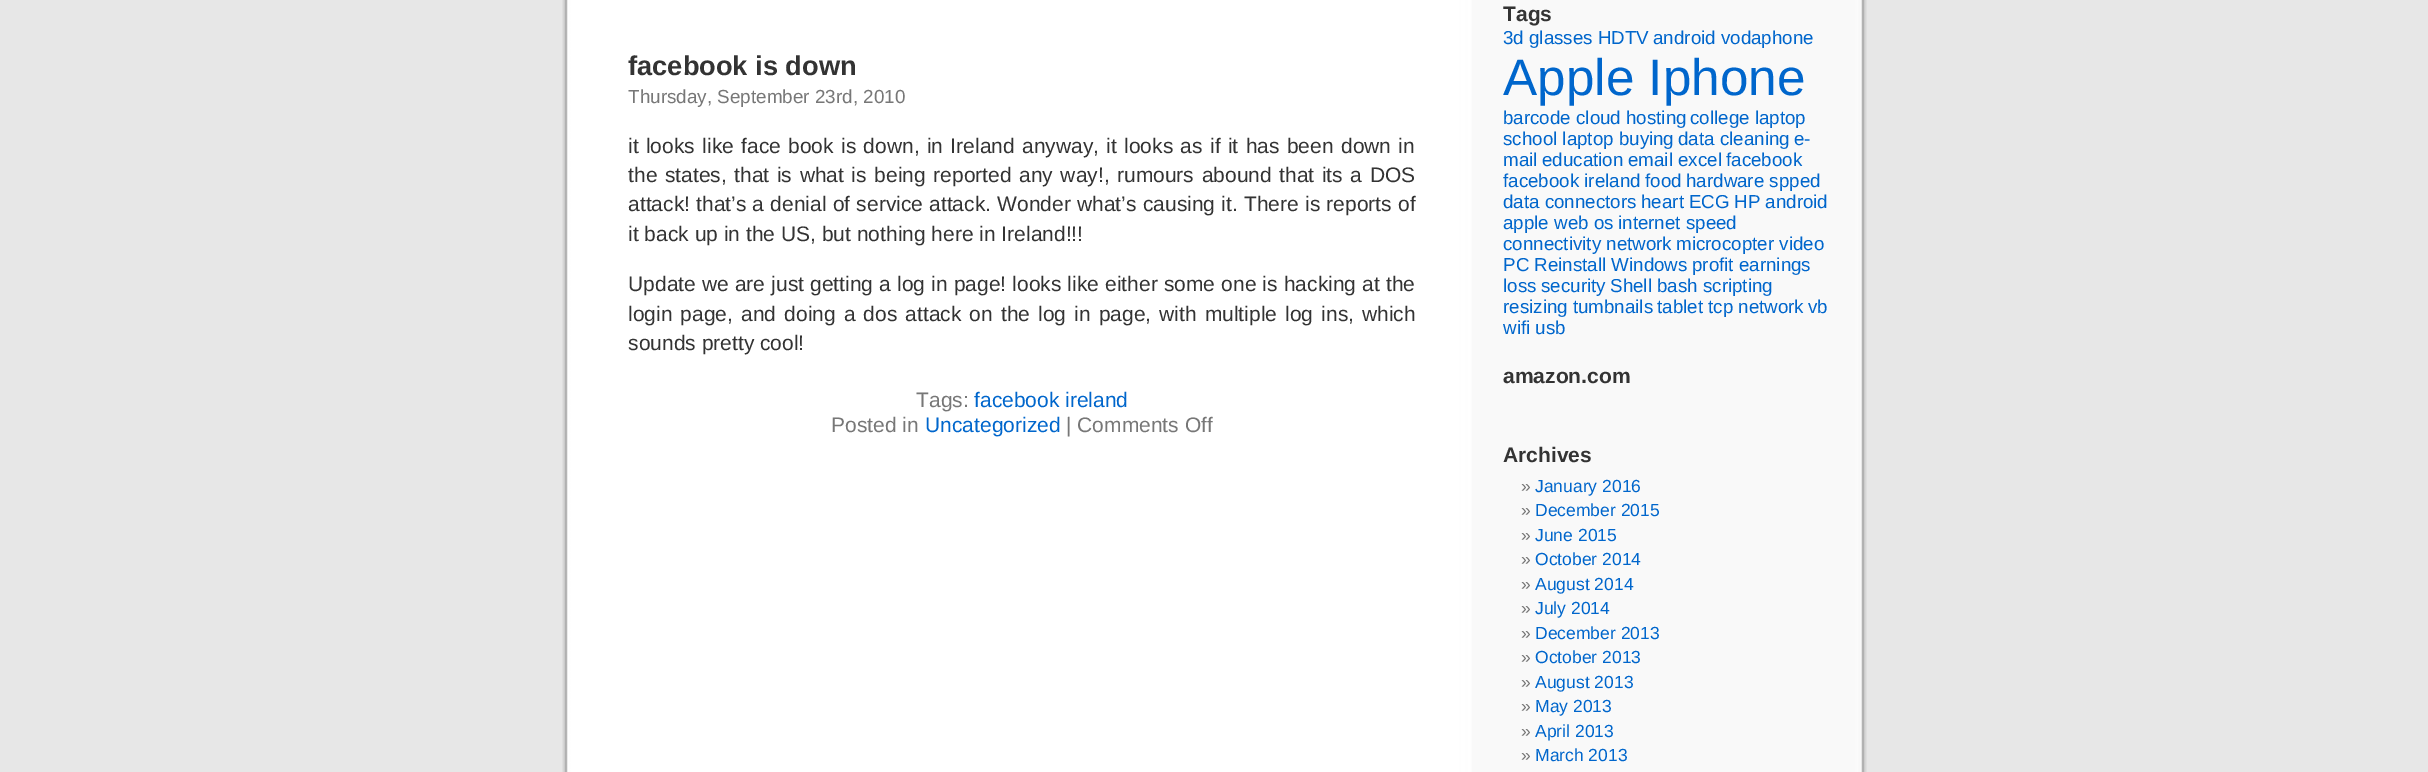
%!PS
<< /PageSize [2428 772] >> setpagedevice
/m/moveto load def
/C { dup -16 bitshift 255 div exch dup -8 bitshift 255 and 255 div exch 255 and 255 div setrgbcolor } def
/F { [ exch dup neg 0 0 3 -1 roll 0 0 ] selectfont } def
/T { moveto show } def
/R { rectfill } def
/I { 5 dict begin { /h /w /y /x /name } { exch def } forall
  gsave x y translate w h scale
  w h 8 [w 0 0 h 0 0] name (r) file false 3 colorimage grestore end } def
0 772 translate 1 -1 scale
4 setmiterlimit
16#E7E7E7 C
0 0 2428 772 R
(1.rgb) 562 0 1305 772 I
/LiberationSans-Bold 27.25 F
16#333333 C
(facebook is down) 628 75 T
/LiberationSans-Regular 18.9 F
16#777777 C
(Thursday, September 23rd, 2010) 628 103 T
/LiberationSans-Regular 21 F
16#333333 C
628 153 m 1.5 0 32 (it looks like face book is down, in Ireland anyway, it looks as if it has been down in) widthshow
628 182 m 1.75 0 32 (the states, that is what is being reported any way!, rumours abound that its a DOS) widthshow
628 211 m .4 0 32 (attack! that’s a denial of service attack. Wonder what’s causing it. There is reports of) widthshow
(it back up in the US, but nothing here in Ireland!!!) 628 241 T
628 291 m .3 0 32 (Update we are just getting a log in page! looks like either some one is hacking at the) widthshow
628 321 m 2.25 0 32 (login page, and doing a dos attack on the log in page, with multiple log ins, which) widthshow
(sounds pretty cool!) 628 350 T
16#777777 C
(Tags:) 916 407 T
16#0066CC C
(facebook ireland) 974 407 T
16#777777 C
(Posted in) 831 432 T
16#0066CC C
(Uncategorized) 925 432 T
16#777777 C
(| Comments Off) 1066 432 T
/LiberationSans-Bold 21 F
16#333333 C
(Tags) 1503 21 T
/LiberationSans-Regular 18.75 F
16#0066CC C
(3d glasses HDTV) 1503 44 T
(android vodaphone) 1653 44 T
/LiberationSans-Regular 51.25 F
(Apple Iphone) 1503 95 T
/LiberationSans-Regular 18.75 F
(barcode) 1503 124 T
(cloud hosting) 1576 124 T
(college laptop) 1690 124 T
(school laptop buying) 1503 145 T
(data cleaning) 1678 145 T
(e-) 1794 145 T
(mail) 1503 166 T
(education) 1542 166 T
(email) 1628 166 T
(excel) 1678 166 T
(facebook) 1726 166 T
(facebook ireland) 1503 187 T
(food) 1645 187 T
(hardware spped) 1686 187 T
(data connectors) 1503 208 T
(heart ECG) 1641 208 T
(HP android) 1734 208 T
(apple web os) 1503 229 T
(internet speed) 1618 229 T
(connectivity network) 1503 250 T
(microcopter video) 1676 250 T
(PC Reinstall Windows) 1503 271 T
(profit earnings) 1692 271 T
(loss) 1503 292 T
(security) 1541 292 T
(Shell bash scripting) 1610 292 T
(resizing tumbnails) 1503 313 T
(tablet) 1657 313 T
(tcp network) 1708 313 T
(vb) 1808 313 T
(wifi usb) 1503 334 T
/LiberationSans-Bold 21 F
16#333333 C
(amazon.com) 1503 383 T
(Archives) 1503 462 T
/LiberationSans-Regular 17.5 F
16#777777 C
(») 1521 492 T
16#0066CC C
(January 2016) 1535 492 T
16#777777 C
(») 1521 516 T
16#0066CC C
(December 2015) 1535 516 T
16#777777 C
(») 1521 541 T
16#0066CC C
(June 2015) 1535 541 T
16#777777 C
(») 1521 565 T
16#0066CC C
(October 2014) 1535 565 T
16#777777 C
(») 1521 590 T
16#0066CC C
(August 2014) 1535 590 T
16#777777 C
(») 1521 614 T
16#0066CC C
(July 2014) 1535 614 T
16#777777 C
(») 1521 639 T
16#0066CC C
(December 2013) 1535 639 T
16#777777 C
(») 1521 663 T
16#0066CC C
(October 2013) 1535 663 T
16#777777 C
(») 1521 688 T
16#0066CC C
(August 2013) 1535 688 T
16#777777 C
(») 1521 712 T
16#0066CC C
(May 2013) 1535 712 T
16#777777 C
(») 1521 737 T
16#0066CC C
(April 2013) 1535 737 T
16#777777 C
(») 1521 761 T
16#0066CC C
(March 2013) 1535 761 T
showpage
